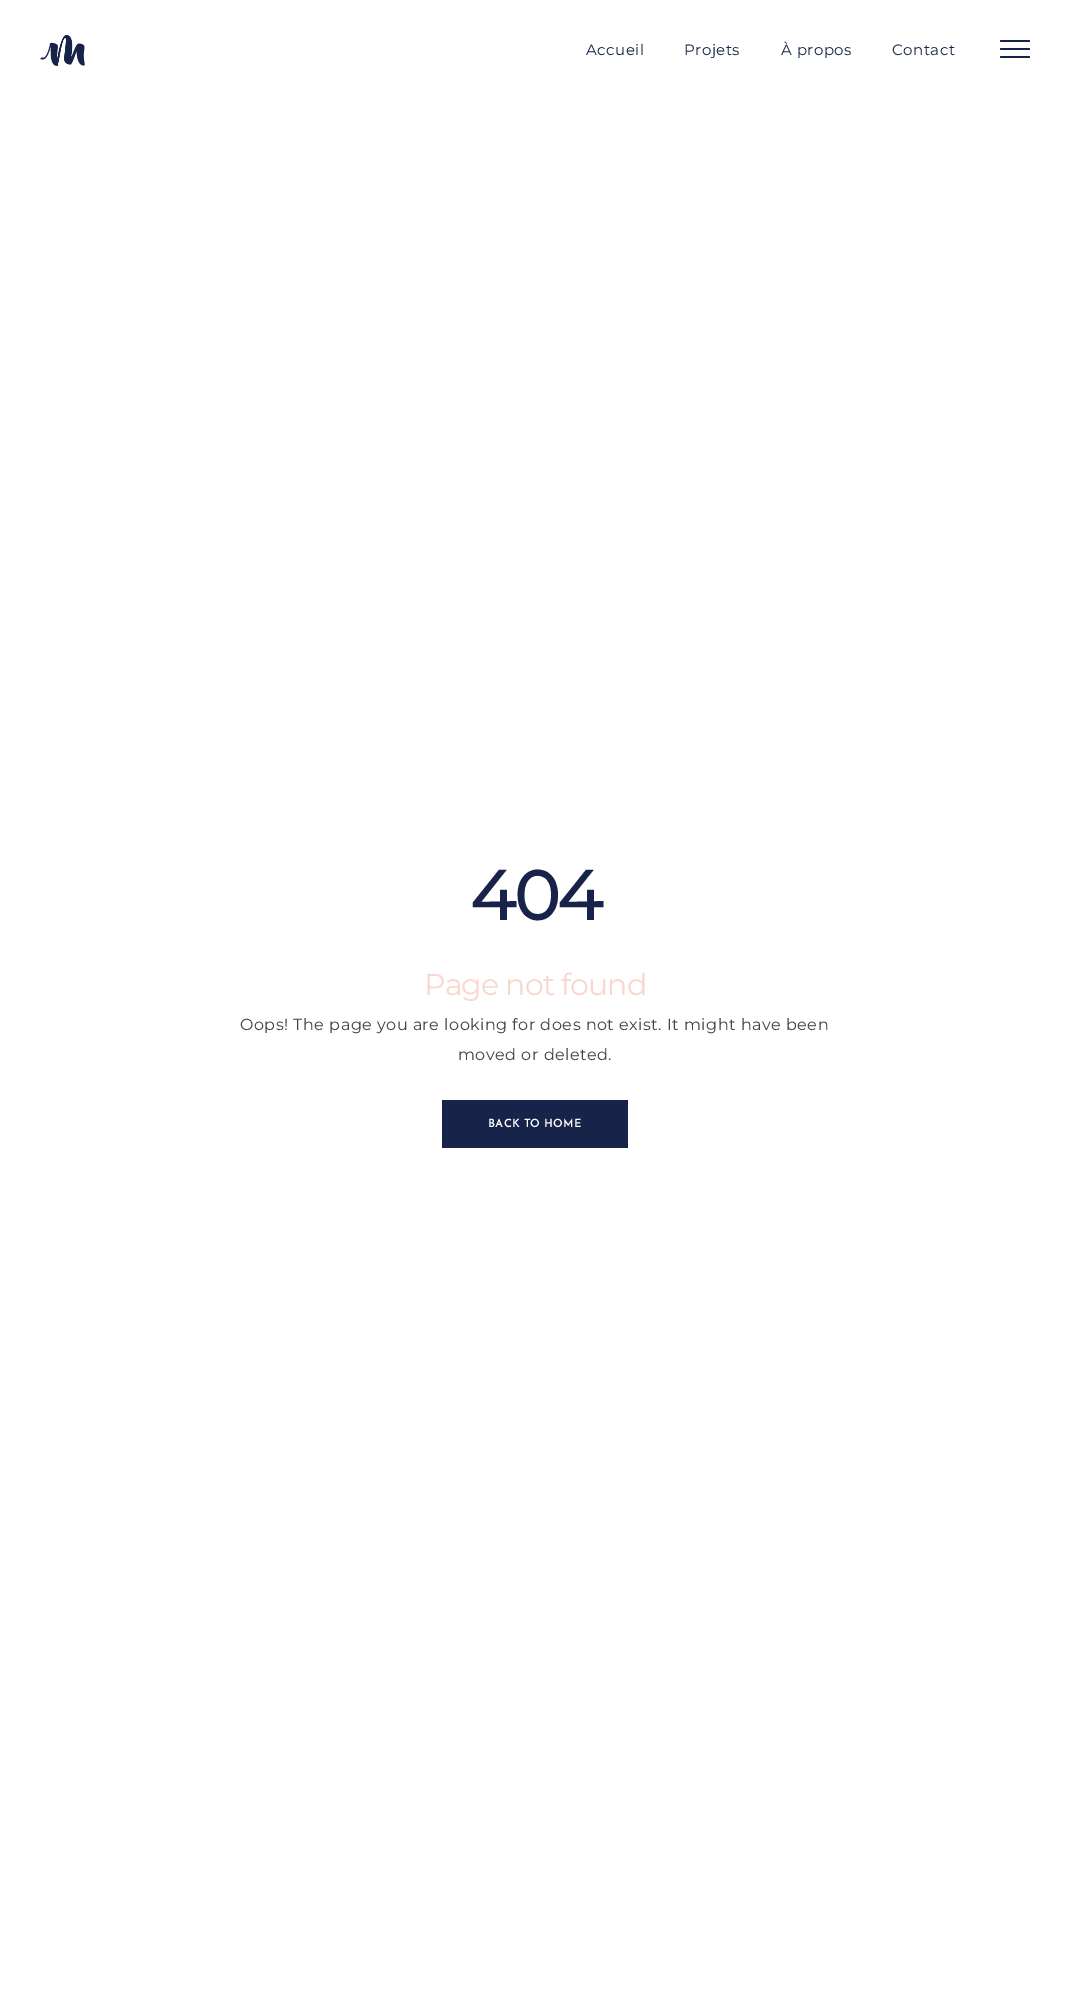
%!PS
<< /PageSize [1070 2004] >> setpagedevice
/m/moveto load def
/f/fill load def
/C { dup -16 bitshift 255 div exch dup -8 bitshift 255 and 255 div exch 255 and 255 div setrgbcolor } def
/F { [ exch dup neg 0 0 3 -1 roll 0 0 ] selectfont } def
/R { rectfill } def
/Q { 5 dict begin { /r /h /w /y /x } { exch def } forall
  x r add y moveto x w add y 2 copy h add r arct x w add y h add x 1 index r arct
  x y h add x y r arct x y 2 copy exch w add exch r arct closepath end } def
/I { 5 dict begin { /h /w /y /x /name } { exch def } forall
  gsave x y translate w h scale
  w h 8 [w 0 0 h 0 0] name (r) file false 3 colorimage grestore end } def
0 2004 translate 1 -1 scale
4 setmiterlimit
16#FFFFFF C
0 0 1070 2004 R
(1.rgb) 40 35 45 31 I
/Montserrat-Thin 15 F
16#18234A C
586 55 m .5 0 (Accueil) ashow
684 55 m .5 0 (Projets) ashow
781 55 m .5 0 (À propos) ashow
892 55 m .5 0 (Contact) ashow
1000 40 30 2 1 Q f
1000 48 30 2 1 Q f
1000 56 30 2 1 Q f
/Montserrat-Bold 69 F
470 920 m -2 0 (404) ashow
/Montserrat-Thin 30 F
16#F8D7CD C
424 995 m -.9 0 (Page not found) ashow
/Montserrat-Thin 16 F
16#424242 C
240 1030 m .5 0 (Oops! The page you are looking for does not exist. It might have been) ashow
458 1060 m .5 0 (moved or deleted.) ashow
16#18234A C
442 1100 186 48 R
/JosefinSans-Bold 11 F
16#FFFFFF C
488 1127 m .5 0 (BACK TO HOME) ashow
showpage
